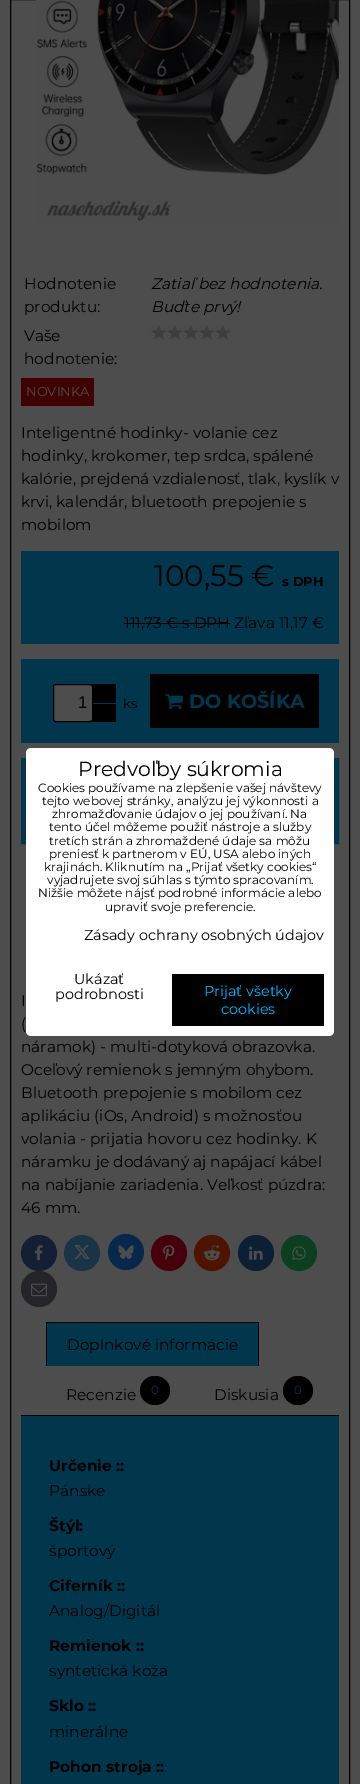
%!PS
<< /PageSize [360 1784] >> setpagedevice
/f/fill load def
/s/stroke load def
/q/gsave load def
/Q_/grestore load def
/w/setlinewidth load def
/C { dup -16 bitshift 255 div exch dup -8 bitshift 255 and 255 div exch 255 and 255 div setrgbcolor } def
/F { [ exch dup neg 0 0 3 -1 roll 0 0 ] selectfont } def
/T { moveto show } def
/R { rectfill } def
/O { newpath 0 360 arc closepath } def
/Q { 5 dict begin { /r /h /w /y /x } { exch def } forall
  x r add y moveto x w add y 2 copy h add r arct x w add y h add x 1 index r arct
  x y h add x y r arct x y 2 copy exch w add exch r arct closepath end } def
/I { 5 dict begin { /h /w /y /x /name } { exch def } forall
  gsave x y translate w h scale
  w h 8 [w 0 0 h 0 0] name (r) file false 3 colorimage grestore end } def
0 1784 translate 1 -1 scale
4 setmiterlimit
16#4D4D4D C
0 0 360 1784 R
16#000000 C
10.5 -.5 339 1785 rectstroke
(1.rgb) 36 0 303 226 I
/Montserrat-Thin 15.4 F
(Hodnotenie) 24 289 T
(produktu:) 24 312 T
/Montserrat-ThinItalic 15.4 F
(Zatiaľ bez hodnotenia.) 151 289 T
(Buďte prvý!) 151 312 T
/Montserrat-Thin 15.4 F
(Vaše) 24 341 T
(hodnotenie:) 24 364 T
(2.rgb) 151 325 80 15 I
16#3E0202 C
21 378 73 28 R
/Montserrat-Thin 13 F
16#4D4D4D C
(NOVINKA) 26 396 T
/Montserrat-Thin 15.4 F
16#000000 C
(Inteligentné hodinky- volanie cez) 21 438 T
(hodinky, krokomer, tep srdca, spálené) 21 461 T
(kalórie, prejdená vzdialenosť, tlak, kyslík v) 21 484 T
(krvi, kalendár, bluetooth prepojenie s) 21 507 T
(mobilom) 21 530 T
16#02364D C
21 551 318 93 R
/Montserrat-Thin 29.5 F
16#000000 C
(100,55 €) 154 586 T
/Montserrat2-Thin 13 F
(s DPH) 282 586 T
/Montserrat-Thin 15.4 F
(111,73 € s DPH) 124 628 T
124 623 106 1 R
(Zľava 11,17 €) 234 628 T
16#02364D C
21 659 318 84 R
16#000000 C
90 684 26 38 R
16#4D4D4D C
53.5 684.5 39 37 2.5 Q q f Q_
16#000000 C
s
/LiberationSans-Regular 17 F
(1) 78 708 T
16#02364D C
93 703 23 1 R
/Montserrat-Thin 13 F
16#000000 C
(ks) 123 708 T
150 674 169 54 R
(3.rgb) 165 694 18 16 I
/Montserrat2-Thin 19.25 F
16#02364D C
(DO KOŠÍKA) 189 708 T
5 w
23.5 760.5 313 81 rectstroke
/Montserrat-Thin 15.4 F
16#000000 C
(I) 21 1006 T
(\() 21 1029 T
(náramok\) - multi-dotyková obrazovka.) 21 1052 T
(Oceľový remienok s jemným ohybom.) 21 1075 T
(Bluetooth prepojenie s mobilom cez) 21 1098 T
(aplikáciu \(iOs, Android\) s možnosťou) 21 1121 T
(volania - prijatia hovoru cez hodinky. K) 21 1144 T
(náramku je dodávaný aj napájací kábel) 21 1167 T
(na nabíjanie zariadenia. Veľkosť púzdra:) 21 1190 T
(46 mm.) 21 1213 T
16#141F35 C
39 1253 18 O f
(4.rgb) 34 1245 9 16 I
16#1A3447 C
82 1253 18 O f
(5.rgb) 74 1245 16 14 I
16#05284C C
126 1252 18 O f
(6.rgb) 118 1245 16 14 I
16#45000B C
169 1253 18 O f
(7.rgb) 163 1245 12 16 I
16#4D1500 C
212 1253 18 O f
(8.rgb) 204 1245 16 16 I
16#0C1F35 C
256 1253 18 O f
(9.rgb) 249 1246 14 14 I
16#0B3F1F C
299 1253 18 O f
(10.rgb) 292 1246 14 15 I
16#242429 C
39 1289 18 O f
(11.rgb) 31 1283 16 14 I
16#02364D C
47 1323 211 43 R
16#000000 C
46 1322 213 1 R
258 1322 1 44 R
46 1322 1 44 R
(Doplnkové informácie) 67 1350 T
(Recenzie) 66 1400 T
140 1376 30 29 14.5 Q f
/Montserrat-Thin 12 F
16#02364D C
(0) 151 1394 T
/Montserrat-Thin 15.4 F
16#000000 C
(Diskusia) 214 1400 T
283 1376 30 29 14.5 Q f
/Montserrat-Thin 12 F
16#02364D C
(0) 294 1394 T
21 1416 318 368 R
16#000000 C
21 1415 318 1 R
/Montserrat2-Thin 15.4 F
(Určenie ::) 49 1471 T
/Montserrat-Thin 15.4 F
(Pánske) 49 1496 T
/Montserrat2-Thin 15.4 F
(Štýl:) 49 1531 T
/Montserrat-Thin 15.4 F
(športový) 49 1556 T
/Montserrat2-Thin 15.4 F
(Ciferník ::) 49 1591 T
/Montserrat-Thin 15.4 F
(Analog/Digitál) 49 1616 T
/Montserrat2-Thin 15.4 F
(Remienok ::) 49 1651 T
/Montserrat-Thin 15.4 F
(syntetická koža) 49 1676 T
/Montserrat2-Thin 15.4 F
(Sklo ::) 49 1711 T
/Montserrat-Thin 15.4 F
(minerálne) 49 1737 T
/Montserrat2-Thin 15.4 F
(Pohon stroja ::) 49 1772 T
16#FFFFFF C
26 748 308 288 5 Q f
/Montserrat-Thin 20.4 F
16#000000 C
(Predvoľby súkromia) 78 776 T
/Montserrat-Thin 12 F
(Cookies používame na zlepšenie vašej návštevy) 38 792 T
(tejto webovej stránky, analýzu jej výkonnosti a) 42 805 T
(zhromažďovanie údajov o jej používaní. Na) 52 818 T
(tento účel môžeme použiť nástroje a služby) 49 831 T
(tretích strán a zhromaždené údaje sa môžu) 49 845 T
(preniesť k partnerom v EÚ, USA alebo iných) 49 858 T
(krajinách. Kliknutím na „Prijať všetky cookies“) 44 871 T
(vyjadrujete svoj súhlas s týmto spracovaním.) 47 884 T
(Nižšie môžete nájsť podrobné informácie alebo) 38 897 T
(upraviť svoje preferencie.) 105 911 T
/Montserrat-Thin 14.4 F
(Zásady ochrany osobných údajov) 84 940 T
(Ukázať) 74 984 T
(podrobnosti) 55 999 T
172 974 152 52 R
16#05B4FF C
(Prijať všetky) 204 996 T
(cookies) 221 1014 T
showpage
